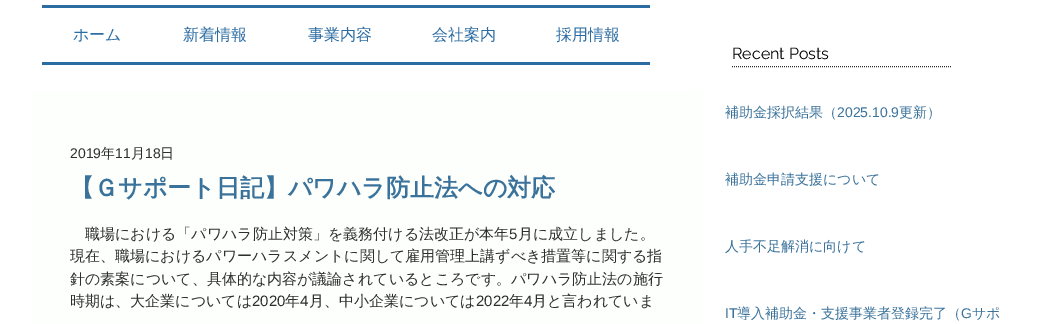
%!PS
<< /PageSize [1044 324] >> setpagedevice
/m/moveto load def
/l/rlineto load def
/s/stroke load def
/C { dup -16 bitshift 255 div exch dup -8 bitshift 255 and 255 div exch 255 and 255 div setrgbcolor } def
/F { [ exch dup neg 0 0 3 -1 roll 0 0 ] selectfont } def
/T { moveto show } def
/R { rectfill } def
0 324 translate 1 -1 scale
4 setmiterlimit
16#FFFFFF C
0 0 1044 324 R
16#2B6CA3 C
42 5 608 3 R
42 62 608 3 R
/WenQuanYiZenHei-Medium 16 F
(ホーム) 73 40 T
(新着情報) 183 40 T
(事業内容) 308 40 T
(会社案内) 432 40 T
(採用情報) 556 40 T
/Raleway-Regular 16 F
16#000000 C
(Recent Posts) 732 59 T
16#2F2E2E C
[1 1] 0 setdash
732 66.5 m 220 0 l s
16#FDFFFC C
32 91 670 233 R
/LiberationSans-Regular 14 F
16#2E2E2E C
(2019) 70 158 T
/WenQuanYiZenHei-Medium 14 F
(年) 101 158 T
/LiberationSans-Regular 14 F
(11) 115 158 T
/WenQuanYiZenHei-Medium 14 F
(月) 131 158 T
/LiberationSans-Regular 14 F
(18) 145 158 T
/WenQuanYiZenHei-Medium 14 F
(日) 160 158 T
/WenQuanYiZenHei-Bold 24 F
16#39729B C
(【Ｇサポート日記】パワハラ防止法への対応) 70 196 T
/WenQuanYiZenHei-Medium 15 F
16#2E2E2E C
(職場における「パワハラ防止対策」を義務付ける法改正が本年) 85 239 T
/LiberationSans-Regular 15 F
(5) 509 239 T
/WenQuanYiZenHei-Medium 15 F
(月に成立しました。) 518 239 T
(現在、職場におけるパワーハラスメントに関して雇用管理上講ずべき措置等に関する指) 70 261 T
(針の素案について、具体的な内容が議論されているところです。パワハラ防止法の施行) 70 284 T
(時期は、大企業については) 70 306 T
/LiberationSans-Regular 15 F
(2020) 252 306 T
/WenQuanYiZenHei-Medium 15 F
(年) 285 306 T
/LiberationSans-Regular 15 F
(4) 300 306 T
/WenQuanYiZenHei-Medium 15 F
(月、中小企業については) 309 306 T
/LiberationSans-Regular 15 F
(2022) 476 306 T
/WenQuanYiZenHei-Medium 15 F
(年) 509 306 T
/LiberationSans-Regular 15 F
(4) 524 306 T
/WenQuanYiZenHei-Medium 15 F
(月と言われていま) 532 306 T
/WenQuanYiZenHei-Medium 14 F
16#39729B C
(補助金採択結果（) 725 117 T
/LiberationSans-Regular 14 F
(2025.10.9) 837 117 T
/WenQuanYiZenHei-Medium 14 F
(更新）) 899 117 T
(補助金申請支援について) 725 184 T
(人手不足解消に向けて) 725 251 T
/LiberationSans-Regular 14 F
(IT) 725 318 T
/WenQuanYiZenHei-Medium 14 F
(導入補助金・支援事業者登録完了（) 737 318 T
/LiberationSans-Regular 14 F
(G) 961 318 T
/WenQuanYiZenHei-Medium 14 F
(サポ) 972 318 T
showpage
